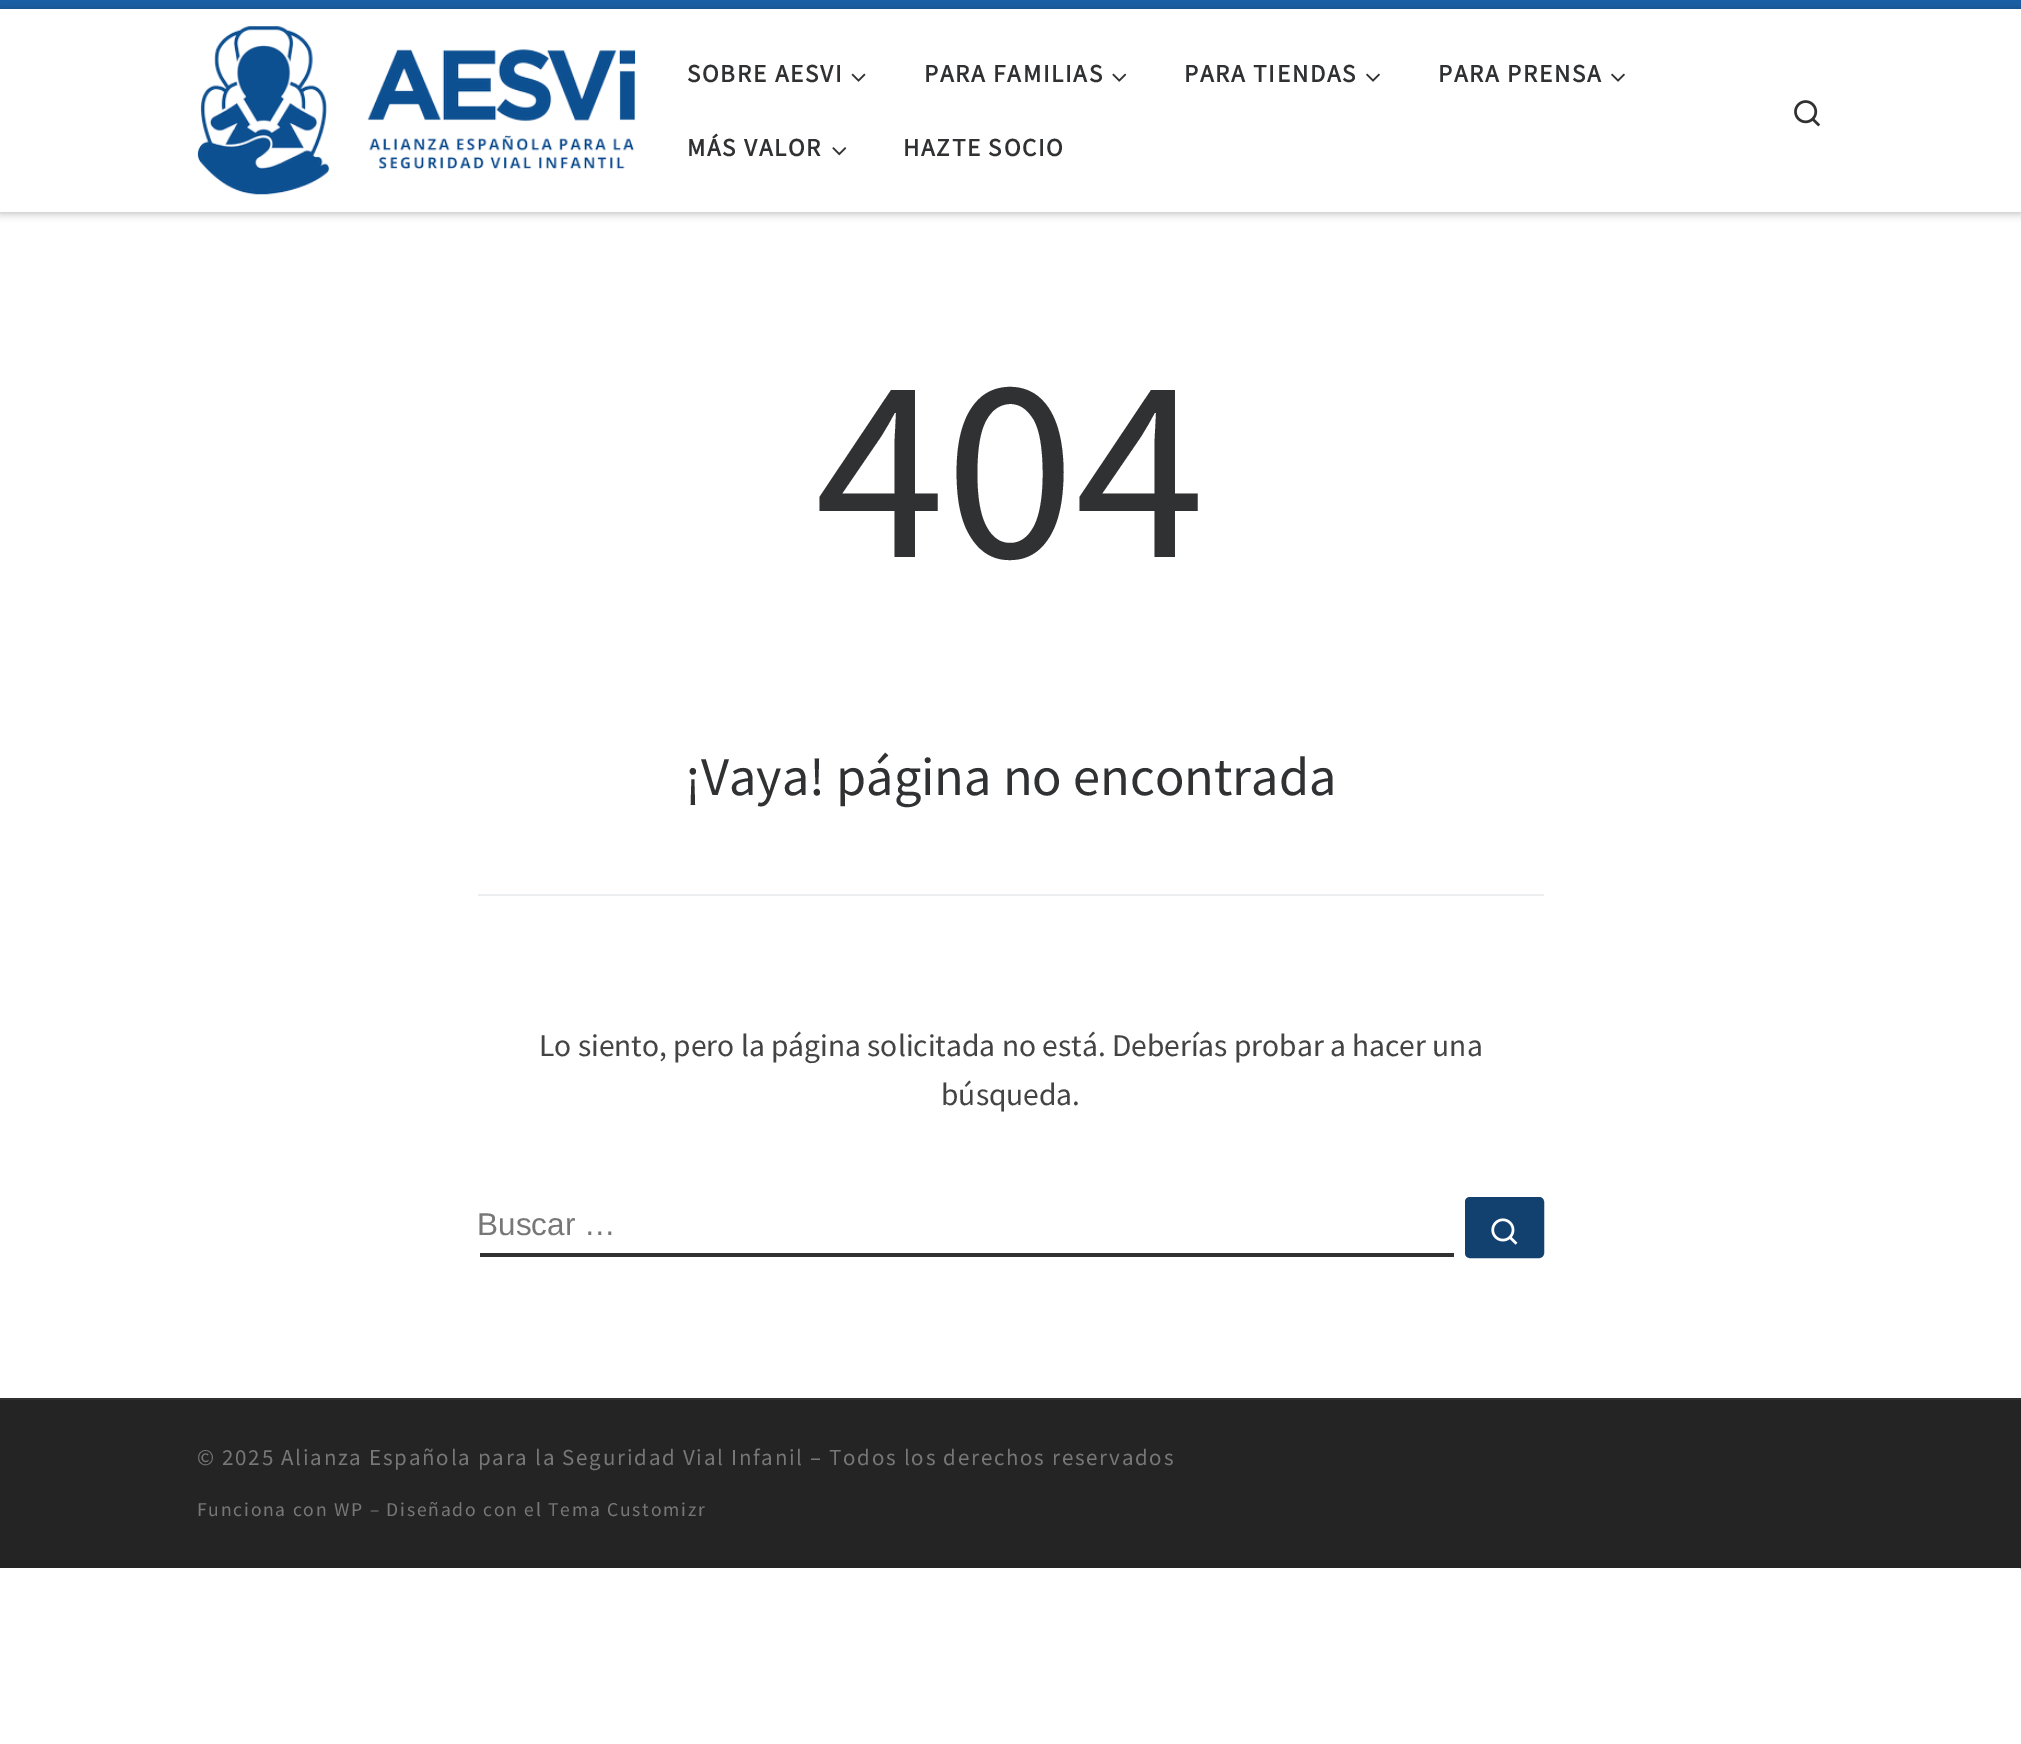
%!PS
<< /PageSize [2021 1744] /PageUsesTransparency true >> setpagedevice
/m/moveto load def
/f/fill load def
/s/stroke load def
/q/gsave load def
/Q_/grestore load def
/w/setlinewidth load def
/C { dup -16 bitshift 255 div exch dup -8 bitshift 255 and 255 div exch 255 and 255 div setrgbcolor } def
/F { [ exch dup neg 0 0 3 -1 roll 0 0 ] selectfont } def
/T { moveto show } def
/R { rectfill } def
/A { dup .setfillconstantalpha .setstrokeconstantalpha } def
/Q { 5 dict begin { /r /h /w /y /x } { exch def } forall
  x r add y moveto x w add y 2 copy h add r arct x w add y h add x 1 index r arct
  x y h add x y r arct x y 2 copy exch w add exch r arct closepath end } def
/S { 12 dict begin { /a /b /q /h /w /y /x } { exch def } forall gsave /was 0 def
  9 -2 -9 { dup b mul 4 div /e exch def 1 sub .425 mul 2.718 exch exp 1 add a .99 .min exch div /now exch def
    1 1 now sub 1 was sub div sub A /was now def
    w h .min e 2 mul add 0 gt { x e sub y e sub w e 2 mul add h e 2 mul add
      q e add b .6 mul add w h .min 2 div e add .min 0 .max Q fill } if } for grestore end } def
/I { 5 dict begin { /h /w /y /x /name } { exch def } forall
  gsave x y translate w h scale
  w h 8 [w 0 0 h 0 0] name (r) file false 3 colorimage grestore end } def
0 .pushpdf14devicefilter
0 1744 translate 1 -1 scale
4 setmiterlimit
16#FFFFFF C
0 0 2021 1744 R
16#666666 C
0 4 2021 213 0 2 .08 S
16#1A60A5 C
0 0 2021 9 R
16#EFEFEF C
0 212 2021 2 R
16#000000 C
0 9 2021 203 0 4.5 .2 S
16#FFFFFF C
0 9 2021 203 R
(1.rgb) 197 26 439 169 I
/SourceSansPro-Bold 25 F
16#303133 C
687 82 m 1.75 0 (SOBRE AESVI) ashow
(2.rgb) 851 73 15 9 I
924 82 m 1.75 0 (PARA FAMILIAS) ashow
(3.rgb) 1112 73 15 9 I
1184 82 m 1.75 0 (PARA TIENDAS) ashow
(4.rgb) 1366 73 14 9 I
1438 82 m 1.75 0 (PARA PRENSA) ashow
(4.rgb) 1611 73 14 9 I
687 156 m 1.75 0 (MÁS VALOR) ashow
(5.rgb) 832 147 15 9 I
903 156 m 1.75 0 (HAZTE SOCIO) ashow
(6.rgb) 1794 100 27 27 I
/SourceSansPro-Regular 262 F
(404) 815 557 T
/SourceSansPro-Regular 54.5 F
(¡Vaya! página no encontrada) 685 795 T
16#ECEEEF C
478 894 1066 2 R
/SourceSansPro-Regular 31.5 F
16#444444 C
(Lo siento, pero la página solicitada no está. Deberías probar a hacer una) 539 1056 T
(búsqueda.) 941 1105 T
16#313131 C
480 1253 974 4 R
/LiberationSans-Regular 31.5 F
16#777777 C
(Buscar …) 477 1235 T
16#124170 C
1467 1199 75 57 3 Q q f Q_
4 w
s
(7.rgb) 1491 1218 27 27 I
16#313131 C
0 1398 2021 2 R
16#242424 C
0 1400 2021 168 R
/SourceSansPro-Regular 22.95 F
16#777777 C
197 1465 m 1.75 0 (© 2025 Alianza Española para la Seguridad Vial Infanil) ashow
810 1465 m 1.75 0 (– Todos los derechos reservados) ashow
/SourceSansPro-Regular 19.6 F
197 1516 m 1.75 0 (Funciona con WP – Diseñado con el Tema Customizr) ashow
16#242424 C
2020 1491 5 79 4 Q f
.poppdf14devicefilter showpage
